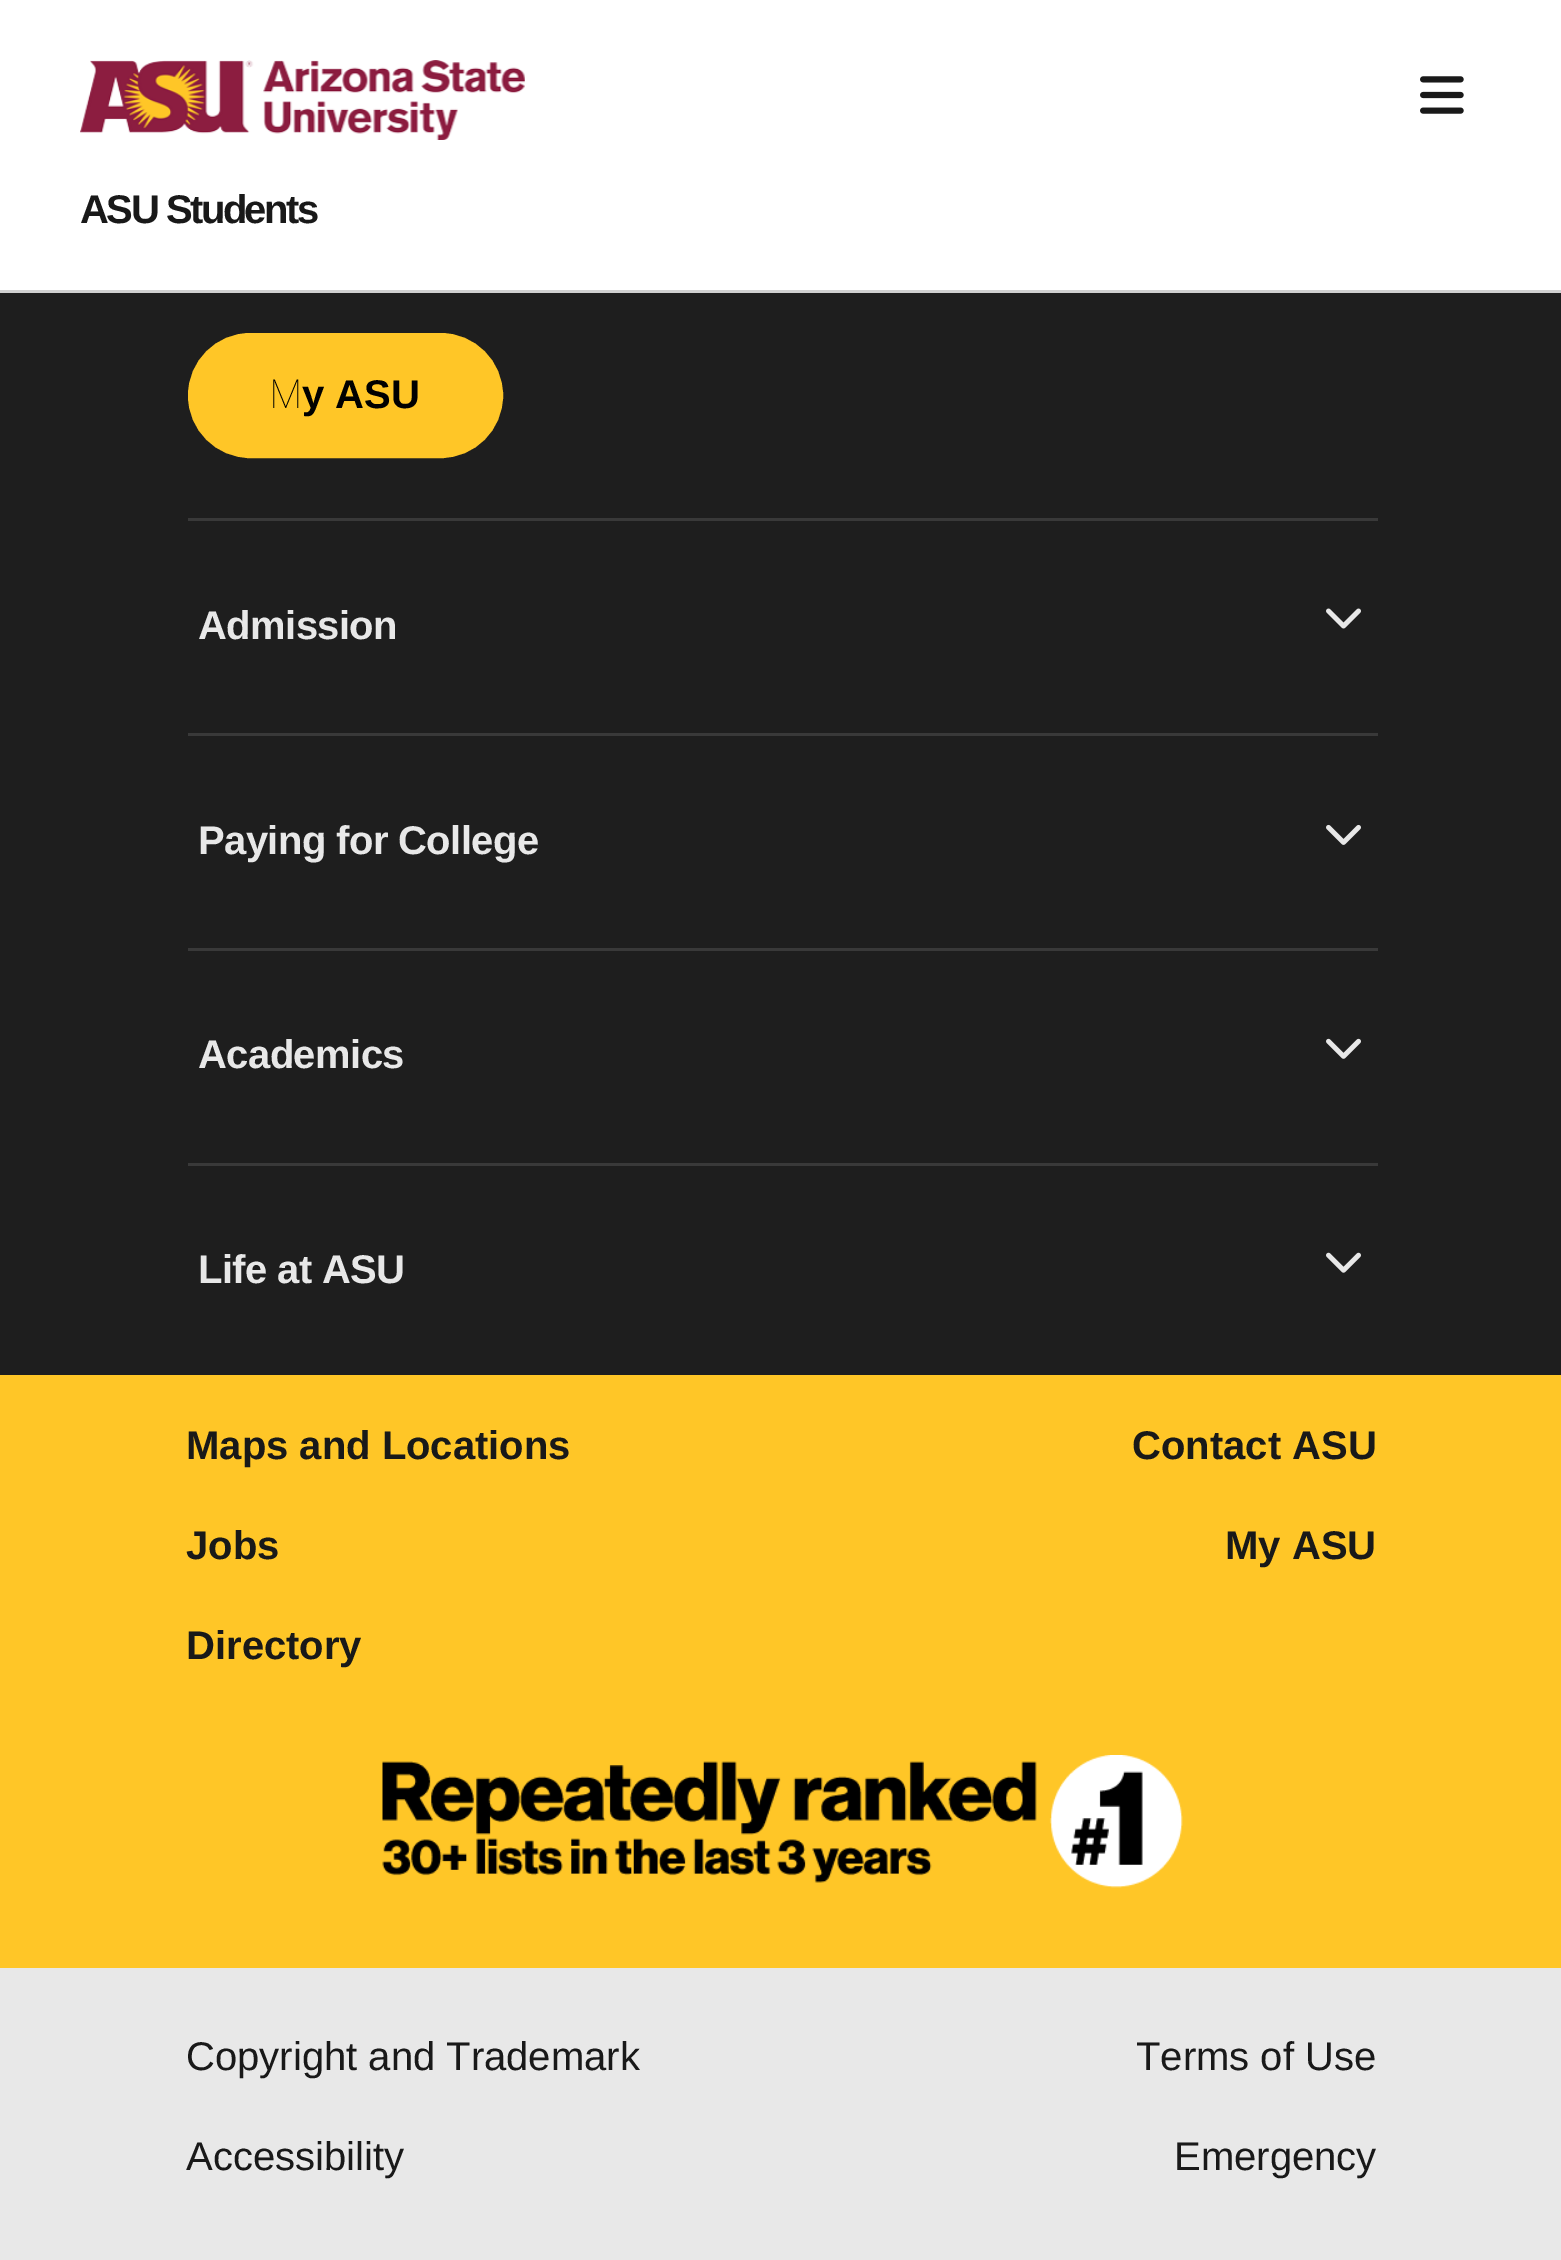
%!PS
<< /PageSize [1561 2260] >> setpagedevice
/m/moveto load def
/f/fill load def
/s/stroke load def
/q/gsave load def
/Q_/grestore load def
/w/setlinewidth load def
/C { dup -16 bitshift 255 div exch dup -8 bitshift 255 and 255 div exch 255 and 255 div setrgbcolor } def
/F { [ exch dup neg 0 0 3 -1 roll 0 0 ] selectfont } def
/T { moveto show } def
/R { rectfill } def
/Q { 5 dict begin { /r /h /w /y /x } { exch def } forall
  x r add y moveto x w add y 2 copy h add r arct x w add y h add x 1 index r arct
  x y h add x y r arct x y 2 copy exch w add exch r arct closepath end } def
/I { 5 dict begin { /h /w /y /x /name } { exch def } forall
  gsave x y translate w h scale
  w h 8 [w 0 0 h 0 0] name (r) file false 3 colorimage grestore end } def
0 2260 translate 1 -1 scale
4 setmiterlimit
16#1E1E1E C
0 0 1561 2260 R
16#FFFFFF C
0 0 1561 290 R
16#D0D0D0 C
0 290 1561 3 R
(1.rgb) 80 60 445 80 I
(2.rgb) 1420 76 44 38 I
/LiberationSans-Bold 40 F
16#191919 C
80 223 m -2.5 0 (ASU Students) ashow
16#FFC627 C
189.5 334.5 312 122 61 Q q f Q_
3 w
s
/NotoSans-Thin 40 F
16#000000 C
(M) 269 408 T
/LiberationSans-Bold 40 F
(y ASU) 302 408 T
16#393939 C
188 518 1190 3 R
16#E8E8E8 C
198 639 m -.6 0 (Admission) ashow
(3.rgb) 1326 608 35 21 I
16#393939 C
188 733 1190 3 R
16#E8E8E8 C
198 854 m -.6 0 (Paying for College) ashow
(4.rgb) 1326 824 35 21 I
16#393939 C
188 948 1190 3 R
16#E8E8E8 C
198 1068 m -.6 0 (Academics) ashow
(5.rgb) 1326 1038 35 21 I
16#393939 C
188 1163 1190 3 R
16#E8E8E8 C
198 1283 m -.6 0 (Life at ASU) ashow
(6.rgb) 1326 1252 35 21 I
16#FFC627 C
0 1375 1561 593 R
16#191919 C
(Maps and Locations) 186 1459 T
(Contact ASU) 1132 1459 T
(Jobs) 186 1559 T
(My ASU) 1225 1559 T
(Directory) 186 1659 T
(7.rgb) 382 1755 801 133 I
16#E8E8E8 C
0 1968 1561 292 R
/LiberationSans-Regular 40 F
16#191919 C
(Copyright and Trademark) 186 2070 T
(Terms of Use) 1136 2070 T
(Accessibility) 186 2170 T
(Emergency) 1174 2170 T
showpage
